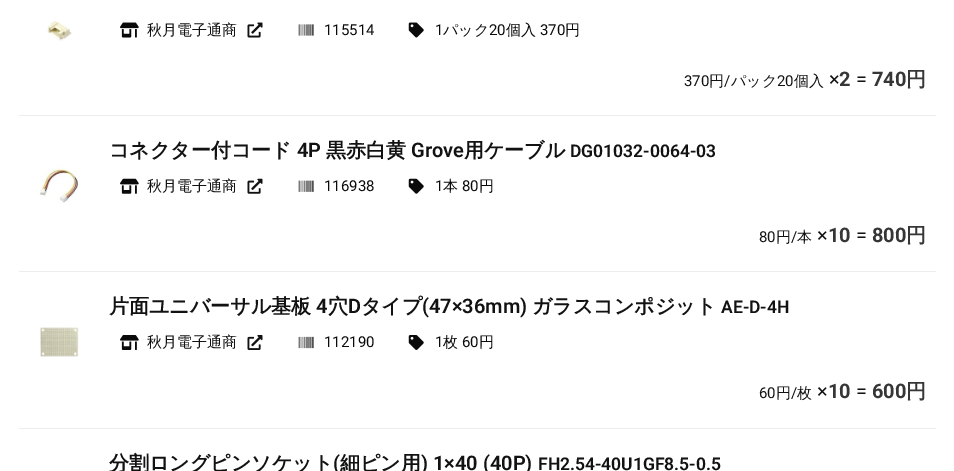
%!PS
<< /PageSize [954 471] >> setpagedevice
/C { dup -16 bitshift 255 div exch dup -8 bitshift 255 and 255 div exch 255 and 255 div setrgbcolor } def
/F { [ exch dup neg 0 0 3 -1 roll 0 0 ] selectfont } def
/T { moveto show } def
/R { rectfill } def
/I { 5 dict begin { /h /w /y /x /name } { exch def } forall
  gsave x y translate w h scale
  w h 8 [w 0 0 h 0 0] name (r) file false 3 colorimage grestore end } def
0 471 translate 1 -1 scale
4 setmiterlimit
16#FFFFFF C
0 0 954 471 R
(1.rgb) 47 21 25 20 I
(2.rgb) 120 22 19 16 I
/WenQuanYiZenHei-Medium 15 F
16#121212 C
(秋月電子通商) 147 35 T
(3.rgb) 247 22 16 16 I
(4.rgb) 298 24 16 12 I
/Roboto-Regular 15 F
16#0A0A0A C
(115514) 324 35 T
(5.rgb) 408 22 16 16 I
(1) 435 35 T
/WenQuanYiZenHei-Medium 15 F
(パック) 443 35 T
/Roboto-Regular 15 F
(20) 489 35 T
/WenQuanYiZenHei-Medium 15 F
(個入) 506 35 T
/Roboto-Regular 15 F
(370) 540 35 T
/WenQuanYiZenHei-Medium 15 F
(円) 565 35 T
/Roboto-Regular 15 F
16#121212 C
(370) 684 86 T
/WenQuanYiZenHei-Medium 15 F
(円) 709 86 T
/Roboto-Regular 15 F
(/) 724 86 T
/WenQuanYiZenHei-Medium 15 F
(パック) 731 86 T
/Roboto-Regular 15 F
(20) 777 86 T
/WenQuanYiZenHei-Medium 15 F
(個入) 794 86 T
/Roboto-Regular 20 F
(×) 829 86 T
/Roboto-Bold 20 F
16#363636 C
(2) 839 86 T
/Roboto-Regular 20 F
16#121212 C
(=) 856 86 T
/Roboto-Bold 20 F
16#363636 C
(740) 872 86 T
/WenQuanYiZenHei-Bold 20 F
(円) 906 86 T
16#EDEDED C
19 115 917 1 R
(6.rgb) 39 165 39 38 I
16#121212 C
(コネクター付コード) 109 157 T
/Roboto-SemiBold 20 F
(4P) 297 157 T
/WenQuanYiZenHei-Bold 20 F
(黒赤白黄) 326 157 T
/Roboto-SemiBold 20 F
(Grove) 411 157 T
/WenQuanYiZenHei-Bold 20 F
(用ケーブル) 464 157 T
/Roboto-SemiBold 17.5 F
(DG01032-0064-03) 570 157 T
(7.rgb) 120 178 19 16 I
/WenQuanYiZenHei-Medium 15 F
(秋月電子通商) 147 191 T
(8.rgb) 247 178 16 16 I
(9.rgb) 298 180 16 12 I
/Roboto-Regular 15 F
16#0A0A0A C
(116938) 324 191 T
(10.rgb) 408 178 16 16 I
(1) 435 191 T
/WenQuanYiZenHei-Medium 15 F
(本) 443 191 T
/Roboto-Regular 15 F
(80) 462 191 T
/WenQuanYiZenHei-Medium 15 F
(円) 479 191 T
/Roboto-Regular 15 F
16#121212 C
(80) 759 242 T
/WenQuanYiZenHei-Medium 15 F
(円) 776 242 T
/Roboto-Regular 15 F
(/) 791 242 T
/WenQuanYiZenHei-Medium 15 F
(本) 797 242 T
/Roboto-Regular 20 F
(×) 817 242 T
/Roboto-Bold 20 F
16#363636 C
(10) 828 242 T
/Roboto-Regular 20 F
16#121212 C
(=) 856 242 T
/Roboto-Bold 20 F
16#363636 C
(800) 872 242 T
/WenQuanYiZenHei-Bold 20 F
(円) 906 242 T
16#EDEDED C
19 271 917 1 R
(11.rgb) 39 327 40 30 I
16#121212 C
(片面ユニバーサル基板) 109 313 T
/Roboto-SemiBold 20 F
(4) 316 313 T
/WenQuanYiZenHei-Bold 20 F
(穴) 328 313 T
/Roboto-SemiBold 20 F
(D) 348 313 T
/WenQuanYiZenHei-Bold 20 F
(タイプ) 361 313 T
/Roboto-SemiBold 20 F
(\(47×36mm\)) 422 313 T
/WenQuanYiZenHei-Bold 20 F
(ガラスコンポジット) 532 313 T
/Roboto-SemiBold 17.5 F
(AE-D-4H) 721 313 T
(12.rgb) 120 335 19 15 I
/WenQuanYiZenHei-Medium 15 F
(秋月電子通商) 147 347 T
(13.rgb) 247 335 16 15 I
(14.rgb) 298 336 16 13 I
/Roboto-Regular 15 F
16#0A0A0A C
(112190) 324 347 T
(15.rgb) 408 335 16 15 I
(1) 435 347 T
/WenQuanYiZenHei-Medium 15 F
(枚) 443 347 T
/Roboto-Regular 15 F
(60) 462 347 T
/WenQuanYiZenHei-Medium 15 F
(円) 479 347 T
/Roboto-Regular 15 F
16#121212 C
(60) 759 398 T
/WenQuanYiZenHei-Medium 15 F
(円) 776 398 T
/Roboto-Regular 15 F
(/) 791 398 T
/WenQuanYiZenHei-Medium 15 F
(枚) 797 398 T
/Roboto-Regular 20 F
(×) 817 398 T
/Roboto-Bold 20 F
16#363636 C
(10) 828 398 T
/Roboto-Regular 20 F
16#121212 C
(=) 856 398 T
/Roboto-Bold 20 F
16#363636 C
(600) 872 398 T
/WenQuanYiZenHei-Bold 20 F
(円) 906 398 T
16#EDEDED C
19 428 917 1 R
16#121212 C
(分割ロングピンソケット) 109 470 T
/Roboto-SemiBold 20 F
(\() 333 470 T
/WenQuanYiZenHei-Bold 20 F
(細ピン用) 340 470 T
/Roboto-SemiBold 20 F
(\) 1×40 \(40P\)) 421 470 T
/Roboto-SemiBold 17.5 F
(FH2.54-40U1GF8.5-0.5) 538 470 T
showpage
